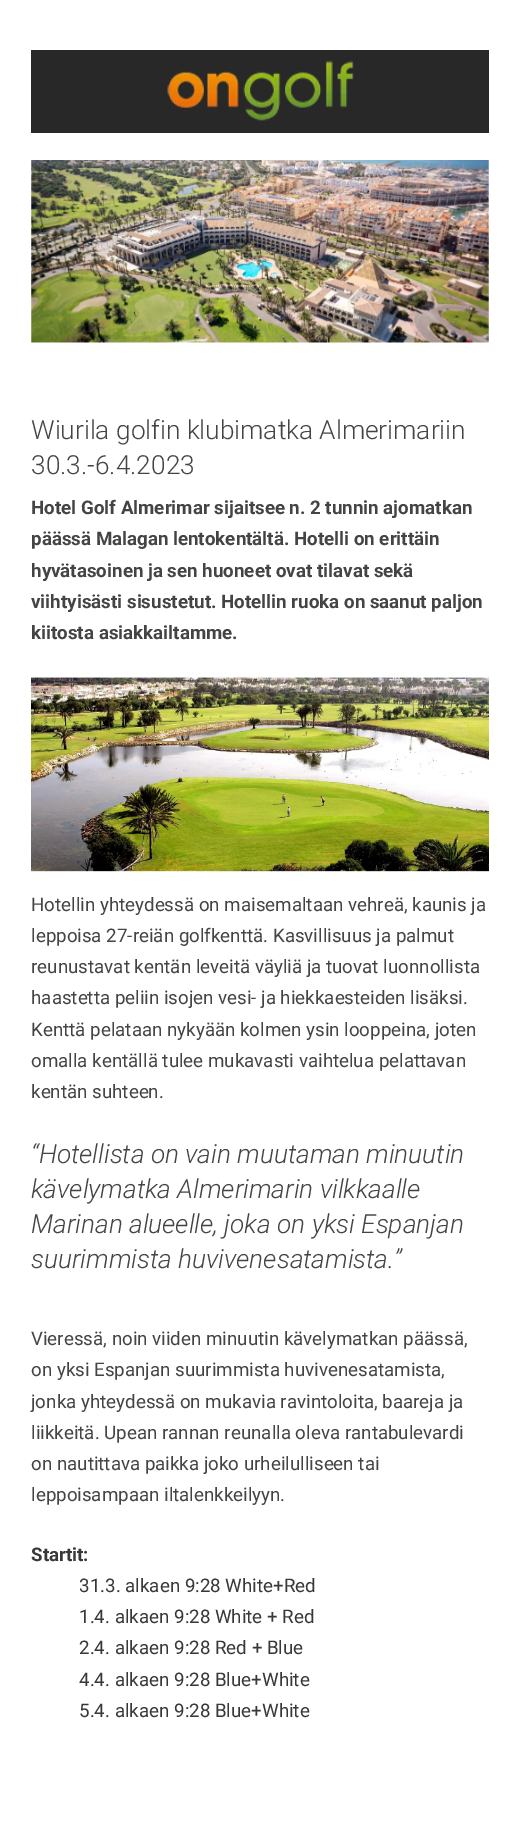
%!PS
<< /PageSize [520 1833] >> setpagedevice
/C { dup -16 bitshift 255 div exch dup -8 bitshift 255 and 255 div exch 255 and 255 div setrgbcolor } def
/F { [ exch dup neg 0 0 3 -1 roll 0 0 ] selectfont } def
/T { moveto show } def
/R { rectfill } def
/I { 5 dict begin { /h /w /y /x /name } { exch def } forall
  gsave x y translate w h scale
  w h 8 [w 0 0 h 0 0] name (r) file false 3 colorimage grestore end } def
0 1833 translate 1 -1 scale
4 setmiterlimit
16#FFFFFF C
0 0 520 1833 R
16#282828 C
31 50 458 83 R
(1.rgb) 167 60 187 61 I
(2.rgb) 31 160 458 183 I
/Roboto-Light 26.25 F
16#444444 C
(Wiurila golfin klubimatka Almerimariin) 31 439 T
(30.3.-6.4.2023) 31 474 T
/Roboto-Bold 18.75 F
(Hotel Golf Almerimar sijaitsee n. 2 tunnin ajomatkan) 31 514 T
(päässä Malagan lentokentältä. Hotelli on erittäin) 31 545 T
(hyvätasoinen ja sen huoneet ovat tilavat sekä) 31 577 T
(viihtyisästi sisustetut. Hotellin ruoka on saanut paljon) 31 608 T
(kiitosta asiakkailtamme.) 31 639 T
(3.rgb) 31 677 458 195 I
/Roboto-Regular 18.75 F
(Hotellin yhteydessä on maisemaltaan vehreä, kaunis ja) 31 911 T
(leppoisa 27-reiän golfkenttä. Kasvillisuus ja palmut) 31 942 T
(reunustavat kentän leveitä väyliä ja tuovat luonnollista) 31 973 T
(haastetta peliin isojen vesi- ja hiekkaesteiden lisäksi.) 31 1004 T
(Kenttä pelataan nykyään kolmen ysin looppeina, joten) 31 1036 T
(omalla kentällä tulee mukavasti vaihtelua pelattavan) 31 1067 T
(kentän suhteen.) 31 1098 T
/Roboto-LightItalic 26.25 F
(“Hotellista on vain muutaman minuutin) 31 1163 T
(kävelymatka Almerimarin vilkkaalle) 31 1198 T
(Marinan alueelle, joka on yksi Espanjan) 31 1233 T
(suurimmista huvivenesatamista.”) 31 1268 T
/Roboto-Regular 18.75 F
(Vieressä, noin viiden minuutin kävelymatkan päässä,) 31 1345 T
(on yksi Espanjan suurimmista huvivenesatamista,) 31 1376 T
(jonka yhteydessä on mukavia ravintoloita, baareja ja) 31 1408 T
(liikkeitä. Upean rannan reunalla oleva rantabulevardi) 31 1439 T
(on nautittava paikka joko urheilulliseen tai) 31 1470 T
(leppoisampaan iltalenkkeilyyn.) 31 1501 T
/Roboto-Bold 18.75 F
16#383838 C
(Startit:) 31 1561 T
/Roboto-Regular 18.75 F
(31.3. alkaen 9:28 White+Red) 79 1592 T
(1.4. alkaen 9:28 White + Red) 79 1623 T
(2.4. alkaen 9:28 Red + Blue) 79 1654 T
(4.4. alkaen 9:28 Blue+White) 79 1686 T
(5.4. alkaen 9:28 Blue+White) 79 1717 T
showpage
